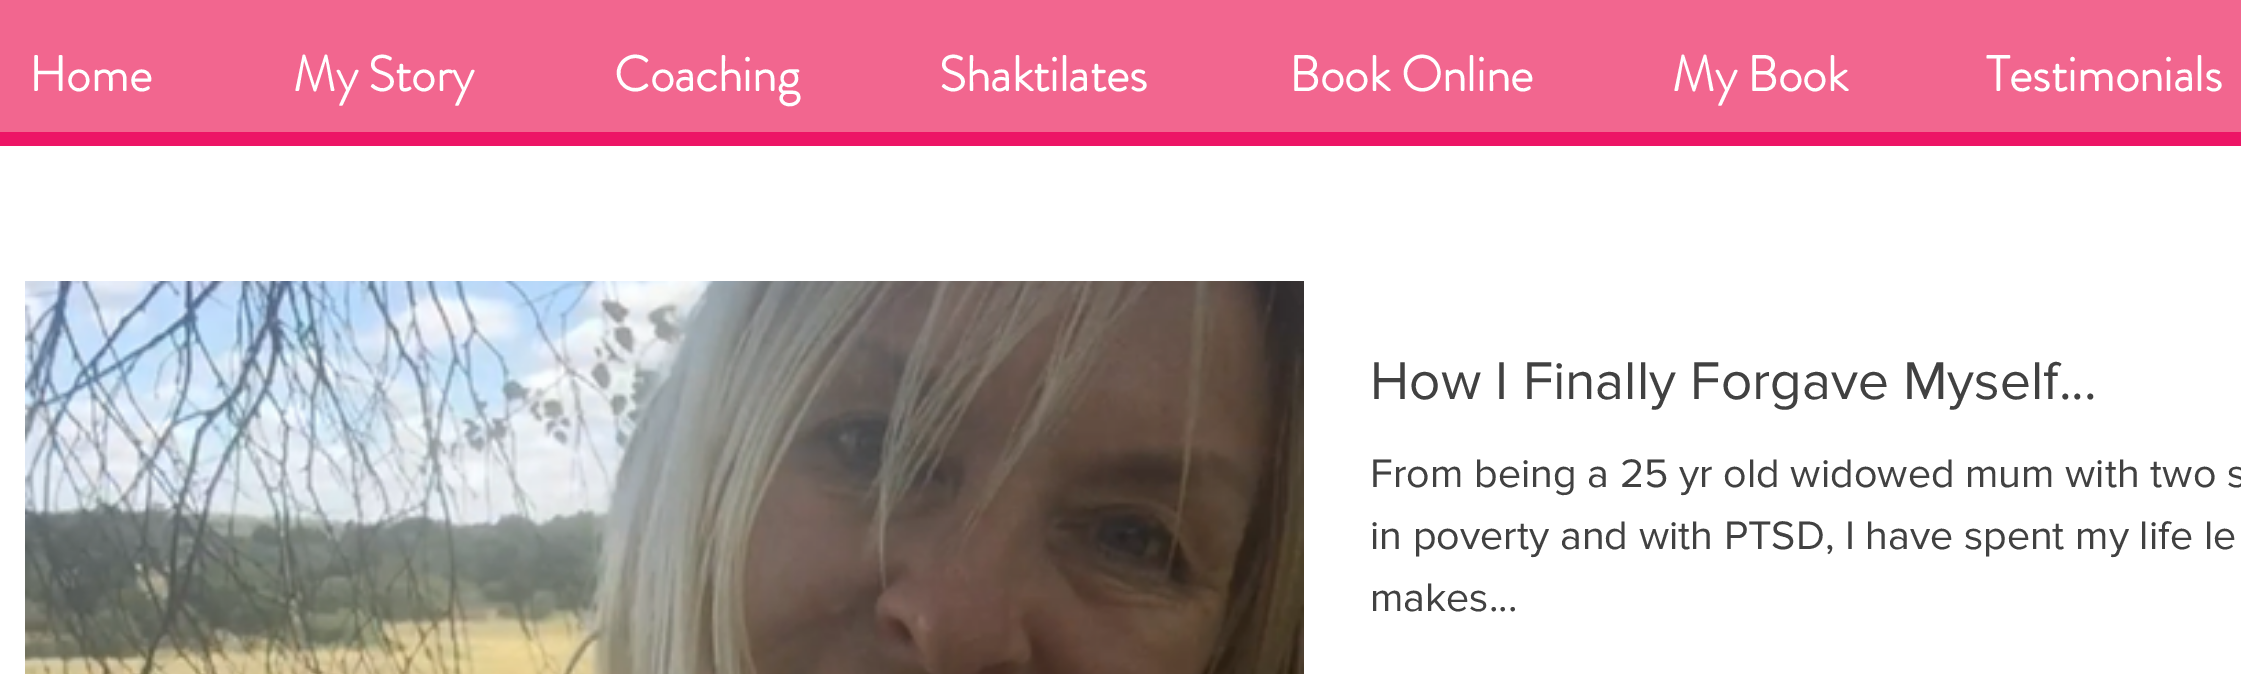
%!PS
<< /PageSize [2241 674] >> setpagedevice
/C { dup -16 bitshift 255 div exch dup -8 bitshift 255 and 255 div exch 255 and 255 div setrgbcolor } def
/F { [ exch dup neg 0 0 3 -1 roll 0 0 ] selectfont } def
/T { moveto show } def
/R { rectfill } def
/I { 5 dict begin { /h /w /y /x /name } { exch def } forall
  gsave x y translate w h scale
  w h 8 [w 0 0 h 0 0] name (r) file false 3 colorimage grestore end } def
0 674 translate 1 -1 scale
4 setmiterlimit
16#FFFFFF C
0 0 2241 674 R
16#F2668F C
0 0 2241 132 R
/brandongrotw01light-Bold 49.5 F
16#FFFFFF C
(Home) 29 91 T
(My Story) 293 91 T
(Coaching) 614 91 T
(Shaktilates) 939 91 T
(Book Online) 1289 91 T
(My Book) 1672 91 T
(Testimonials) 1986 91 T
16#ED1566 C
0 132 2241 14 R
(1.rgb) 25 281 1279 393 I
/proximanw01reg-Regular 55 F
16#414141 C
(How I Finally Forgave Myself...) 1370 399 T
/proximanw01reg-Regular 41.25 F
(From being a 25 yr old widowed mum with two s) 1370 487 T
(in poverty and with PTSD, I have spent my life le) 1370 549 T
(makes...) 1370 611 T
showpage
